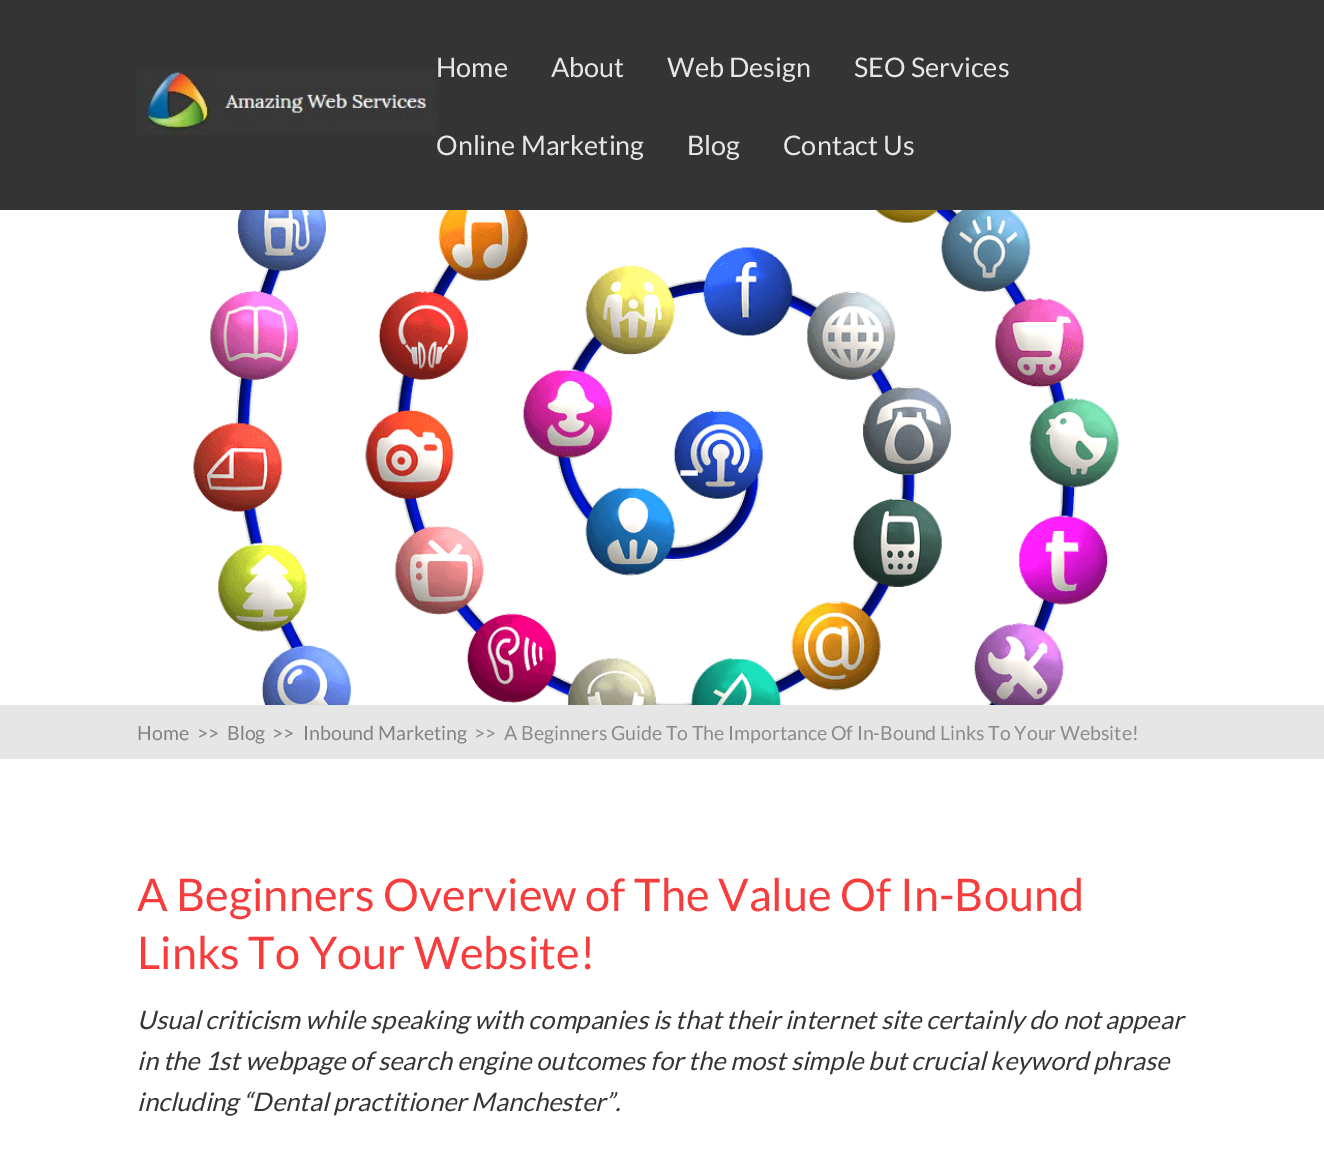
%!PS
<< /PageSize [1324 1162] >> setpagedevice
/C { dup -16 bitshift 255 div exch dup -8 bitshift 255 and 255 div exch 255 and 255 div setrgbcolor } def
/F { [ exch dup neg 0 0 3 -1 roll 0 0 ] selectfont } def
/T { moveto show } def
/R { rectfill } def
/I { 5 dict begin { /h /w /y /x /name } { exch def } forall
  gsave x y translate w h scale
  w h 8 [w 0 0 h 0 0] name (r) file false 3 colorimage grestore end } def
0 1162 translate 1 -1 scale
4 setmiterlimit
16#FFFFFF C
0 0 1324 1162 R
16#343434 C
0 0 1324 210 R
(1.rgb) 136 69 301 66 I
/Lato-Regular 27 F
16#E6E6E6 C
(Home) 436 77 T
(About) 551 77 T
(Web Design) 667 77 T
(SEO Services) 854 77 T
(Online Marketing) 436 155 T
(Blog) 687 155 T
(Contact Us) 783 155 T
(2.rgb) 193 210 926 495 I
/Lato-Regular 70 F
16#FEFEFE C
(-) 677 494 T
16#E6E6E6 C
0 705 1324 54 R
/Lato-Regular 19.5 F
16#828282 C
(Home) 137 740 T
(>>) 197 740 T
(Blog) 227 740 T
(>>) 272 740 T
(Inbound Marketing) 303 740 T
16#8C8B8B C
(>>) 474 740 T
(A Beginners Guide To The Importance Of In-Bound Links To Your Website!) 504 740 T
/Lato-Regular 45 F
16#F63D3D C
(A Beginners Overview of The Value Of In-Bound) 137 911 T
(Links To Your Website!) 137 969 T
/Lato-Italic 25.5 F
16#343434 C
(Usual criticism while speaking with companies is that their internet site certainly do not appear) 137 1029 T
(in the 1st webpage of search engine outcomes for the most simple but crucial keyword phrase) 137 1070 T
(including “Dental practitioner Manchester”.) 137 1111 T
showpage
